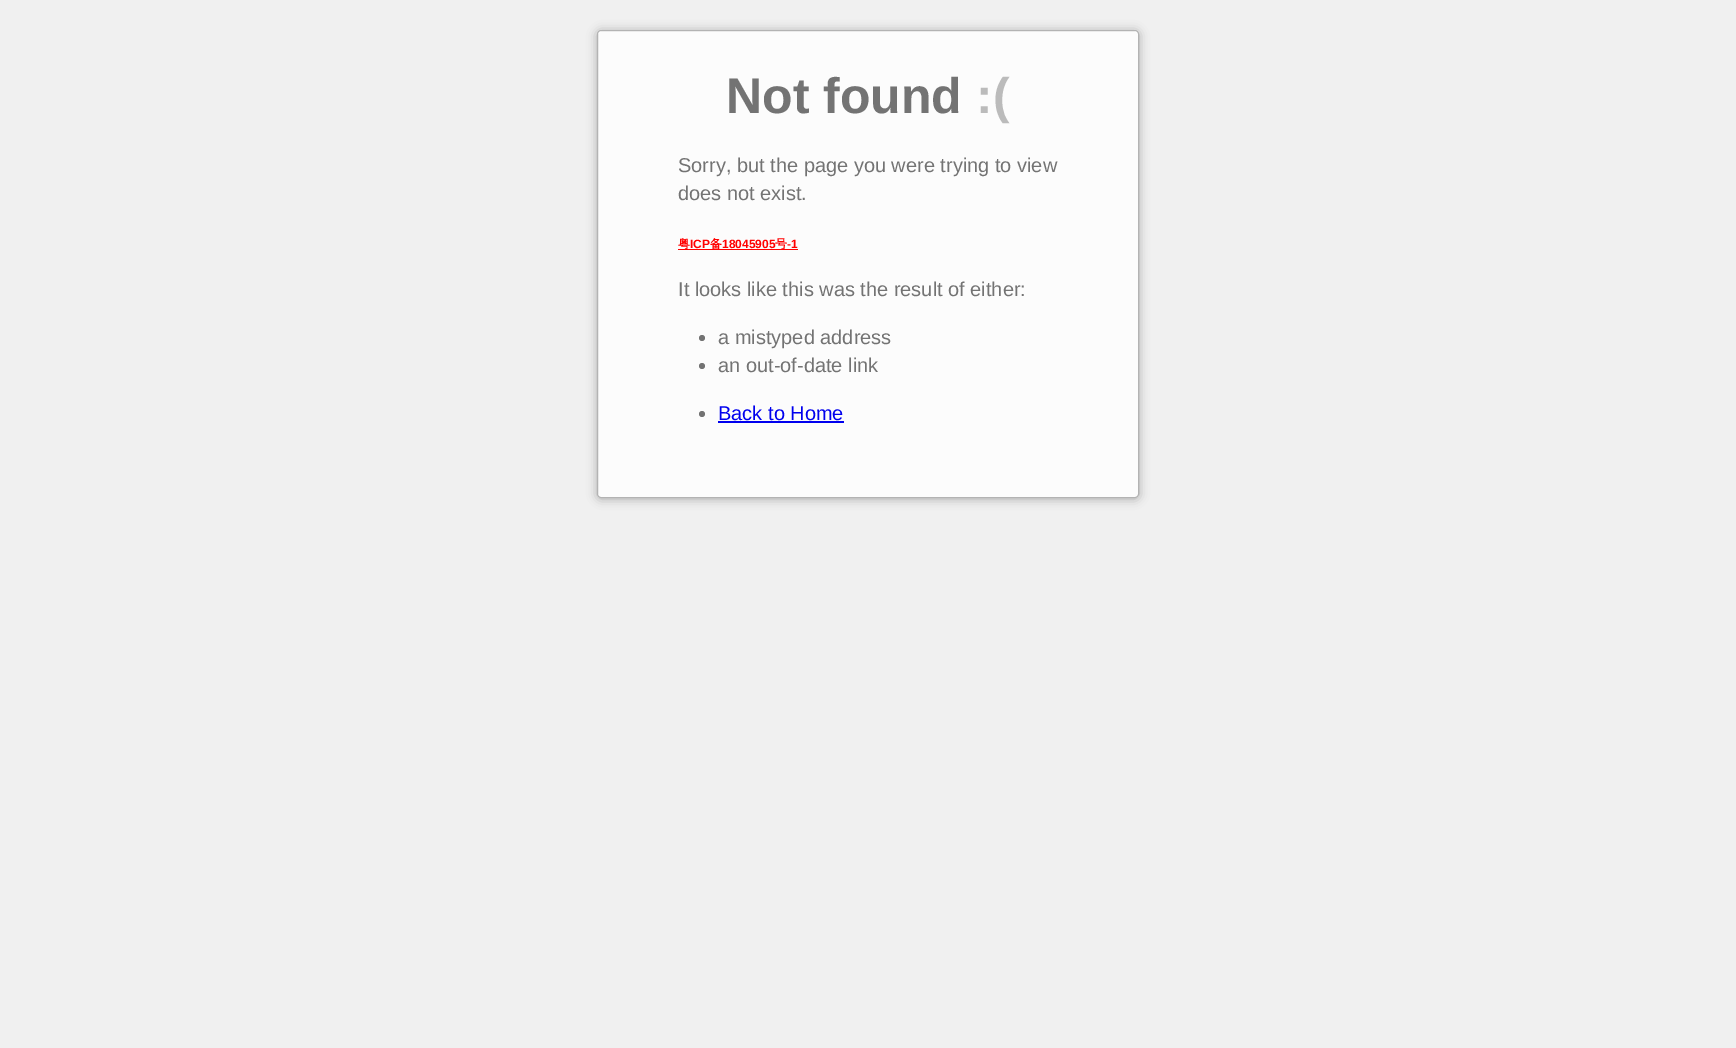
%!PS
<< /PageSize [1736 1048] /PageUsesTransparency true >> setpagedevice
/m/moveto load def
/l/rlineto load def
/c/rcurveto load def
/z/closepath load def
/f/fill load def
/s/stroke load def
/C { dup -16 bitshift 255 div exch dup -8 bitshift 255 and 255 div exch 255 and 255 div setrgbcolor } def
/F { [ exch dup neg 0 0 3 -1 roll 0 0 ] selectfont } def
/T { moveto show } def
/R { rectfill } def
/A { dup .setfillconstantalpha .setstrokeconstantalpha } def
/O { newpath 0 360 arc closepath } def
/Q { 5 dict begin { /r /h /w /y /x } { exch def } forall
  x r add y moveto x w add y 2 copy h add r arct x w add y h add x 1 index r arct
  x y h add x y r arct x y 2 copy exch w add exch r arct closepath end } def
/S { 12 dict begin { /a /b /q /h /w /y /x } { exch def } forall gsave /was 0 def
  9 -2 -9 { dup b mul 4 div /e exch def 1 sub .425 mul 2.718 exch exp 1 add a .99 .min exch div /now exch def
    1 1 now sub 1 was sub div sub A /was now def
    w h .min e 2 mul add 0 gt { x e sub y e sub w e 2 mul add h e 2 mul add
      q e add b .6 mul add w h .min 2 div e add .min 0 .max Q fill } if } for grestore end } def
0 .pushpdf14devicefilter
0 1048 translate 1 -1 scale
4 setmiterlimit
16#F0F0F0 C
0 0 1736 1048 R
16#A7A7A7 C
597 31 542 468 4 5 1 S
16#FCFCFC C
597 30 542 468 4 Q f
16#FFFFFF C
601 32 m 534 0 l 2 0 3 1 3 3 c 0 -1 l 0 -2 -1 -3 -3 -3 c -534 0 l -2 0 -3 1 -3 3 c 0 1 l 0 -2 1 -3 3 -3 c z f
16#B3B3B3 C
597.5 30.5 541 467 3.5 Q s
/LiberationSans-Bold 50 F
16#737373 C
(Not found) 726 113 T
16#BBBBBB C
(:\() 976 113 T
/LiberationSans-Regular 20 F
16#737373 C
(Sorry, but the page you were trying to view) 678 172 T
(does not exist.) 678 200 T
16#FF0000 C
678 249 120 1 R
/WenQuanYiZenHei-Bold 12 F
(粤) 678 248 T
/LiberationSans-Bold 12 F
(ICP) 690 248 T
/WenQuanYiZenHei-Bold 12 F
(备) 710 248 T
/LiberationSans-Bold 12 F
(18045905) 722 248 T
/WenQuanYiZenHei-Bold 12 F
(号) 775 248 T
/LiberationSans-Bold 12 F
(-1) 787 248 T
/LiberationSans-Regular 20 F
16#737373 C
(It looks like this was the result of either:) 678 296 T
702 338 3 O f
(a mistyped address) 718 344 T
702 366 3 O f
(an out-of-date link) 718 372 T
702 414 3 O f
16#0000EE C
(Back to Home) 718 420 T
718 421 126 2 R
.poppdf14devicefilter showpage
